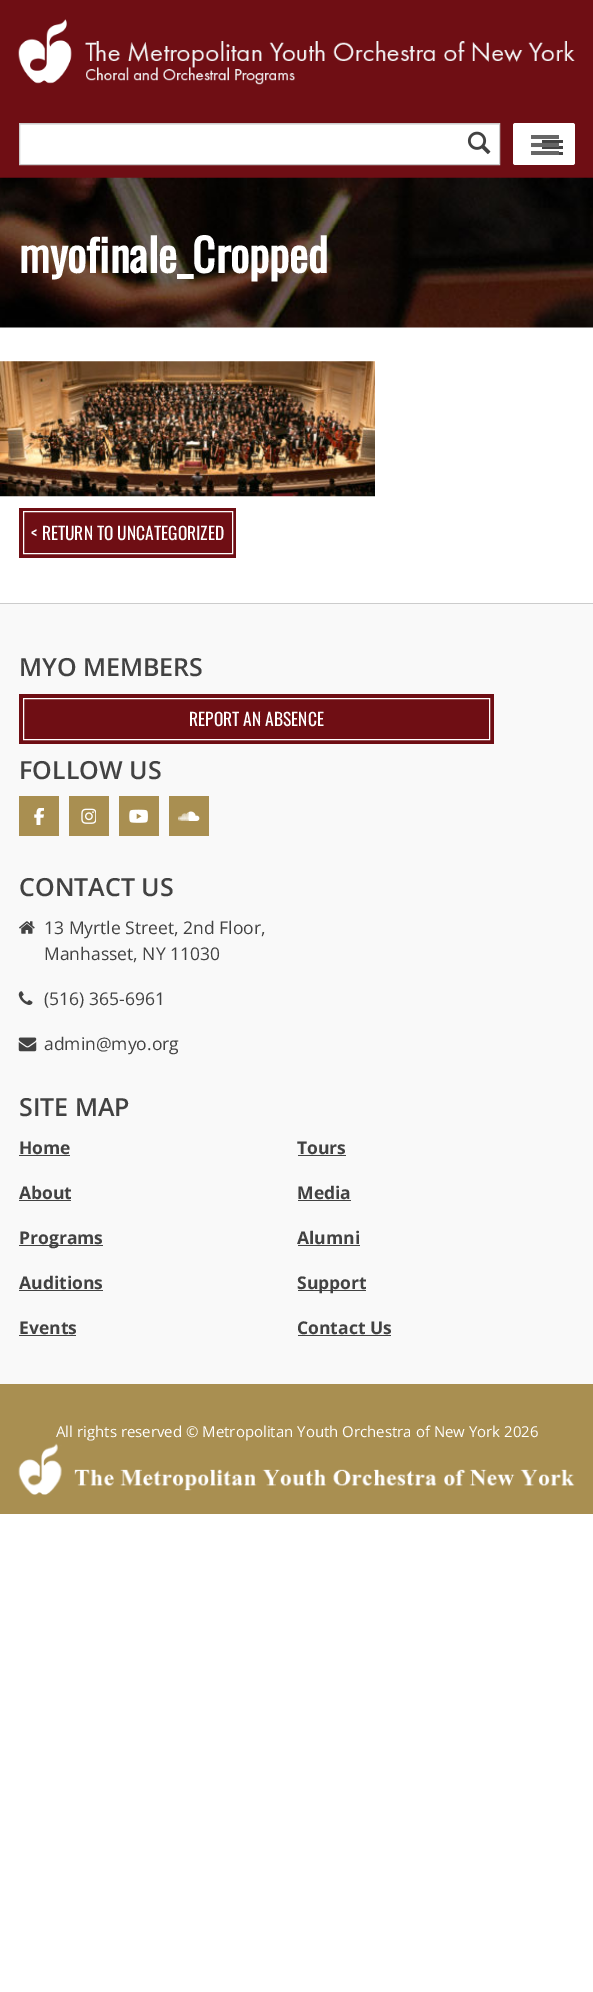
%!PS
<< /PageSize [593 1992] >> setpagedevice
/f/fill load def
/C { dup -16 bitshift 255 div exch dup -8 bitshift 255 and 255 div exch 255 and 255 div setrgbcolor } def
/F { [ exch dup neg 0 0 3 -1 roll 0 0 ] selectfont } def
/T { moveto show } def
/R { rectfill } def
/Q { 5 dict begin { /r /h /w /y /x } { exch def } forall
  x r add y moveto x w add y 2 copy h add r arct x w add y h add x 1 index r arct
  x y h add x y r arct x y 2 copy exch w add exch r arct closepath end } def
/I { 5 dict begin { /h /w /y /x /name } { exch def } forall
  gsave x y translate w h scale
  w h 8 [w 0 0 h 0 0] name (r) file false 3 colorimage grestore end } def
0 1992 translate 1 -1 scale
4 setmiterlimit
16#FFFFFF C
0 0 593 1992 R
16#6F0E14 C
0 0 593 178 R
(1.rgb) 18 19 557 66 I
16#FFFFFF C
20 125 479 39 R
16#ECECEC C
20 124 479 1 R
16#CCCCCC C
19.5 123.5 480 41 rectstroke
(2.rgb) 467 131 24 24 I
16#FFFFFF C
513 123 62 42 2.5 Q f
(4.rgb) 542 140 21 15 I
(3.rgb) 531 135 28 20 I
(5.rgb) 0 177 593 151 I
/Oswald-Bold 45 F
(myofinale_Cropped) 19 273 T
(6.rgb) 0 361 375 136 I
16#6F0E14 C
19 508 217 50 R
16#FFFFFF C
23.5 511.5 209 42 rectstroke
/Oswald-Regular 17.5 F
(< RETURN TO UNCATEGORIZED) 31 540 T
16#A98F51 C
0 1384 593 130 R
16#CCCCCC C
0 603 593 1 R
16#F9F9F9 C
0 604 593 780 R
/OpenSans-SemiBold 25 F
16#424242 C
(MYO MEMBERS) 19 676 T
16#6F0E14 C
19 694 475 50 R
16#FFFFFF C
23.5 698.5 466 41 rectstroke
/Oswald-Regular 17.5 F
(REPORT AN ABSENCE) 189 726 T
/OpenSans-SemiBold 25 F
16#424242 C
(FOLLOW US) 19 779 T
16#A98F51 C
19 796 40 40 R
(7.rgb) 34 808 10 17 I
69 796 40 40 R
(8.rgb) 81 808 15 16 I
119 796 40 40 R
(9.rgb) 129 809 19 14 I
169 796 40 40 R
(10.rgb) 178 811 22 10 I
16#424242 C
(CONTACT US) 19 896 T
(11.rgb) 19 921 16 13 I
/OpenSans-Regular 17.5 F
(13 Myrtle Street, 2nd Floor,) 44 934 T
(Manhasset, NY 11030) 44 960 T
(12.rgb) 18 991 15 14 I
(\(516\) 365-6961) 44 1005 T
(13.rgb) 18 1037 19 15 I
(admin@myo.org) 44 1050 T
/OpenSans-SemiBold 25 F
(SITE MAP) 19 1116 T
/OpenSans-Bold 17.5 F
(Home) 19 1154 T
19 1155 51 1 R
(About) 19 1199 T
19 1200 52 1 R
19 1245 84 1 R
(Programs) 19 1244 T
(Auditions) 19 1289 T
19 1290 84 1 R
(Events) 19 1334 T
19 1335 57 1 R
(Tours) 297 1154 T
298 1155 48 1 R
(Media) 297 1199 T
298 1200 53 1 R
(Alumni) 297 1244 T
298 1245 62 1 R
298 1290 68 1 R
(Support) 297 1289 T
(Contact Us) 297 1334 T
298 1335 93 1 R
/OpenSans-Regular 15 F
16#FFFFFF C
(All rights reserved © Metropolitan Youth Orchestra of New York 2026) 56 1437 T
(14.rgb) 18 1443 557 52 I
showpage
